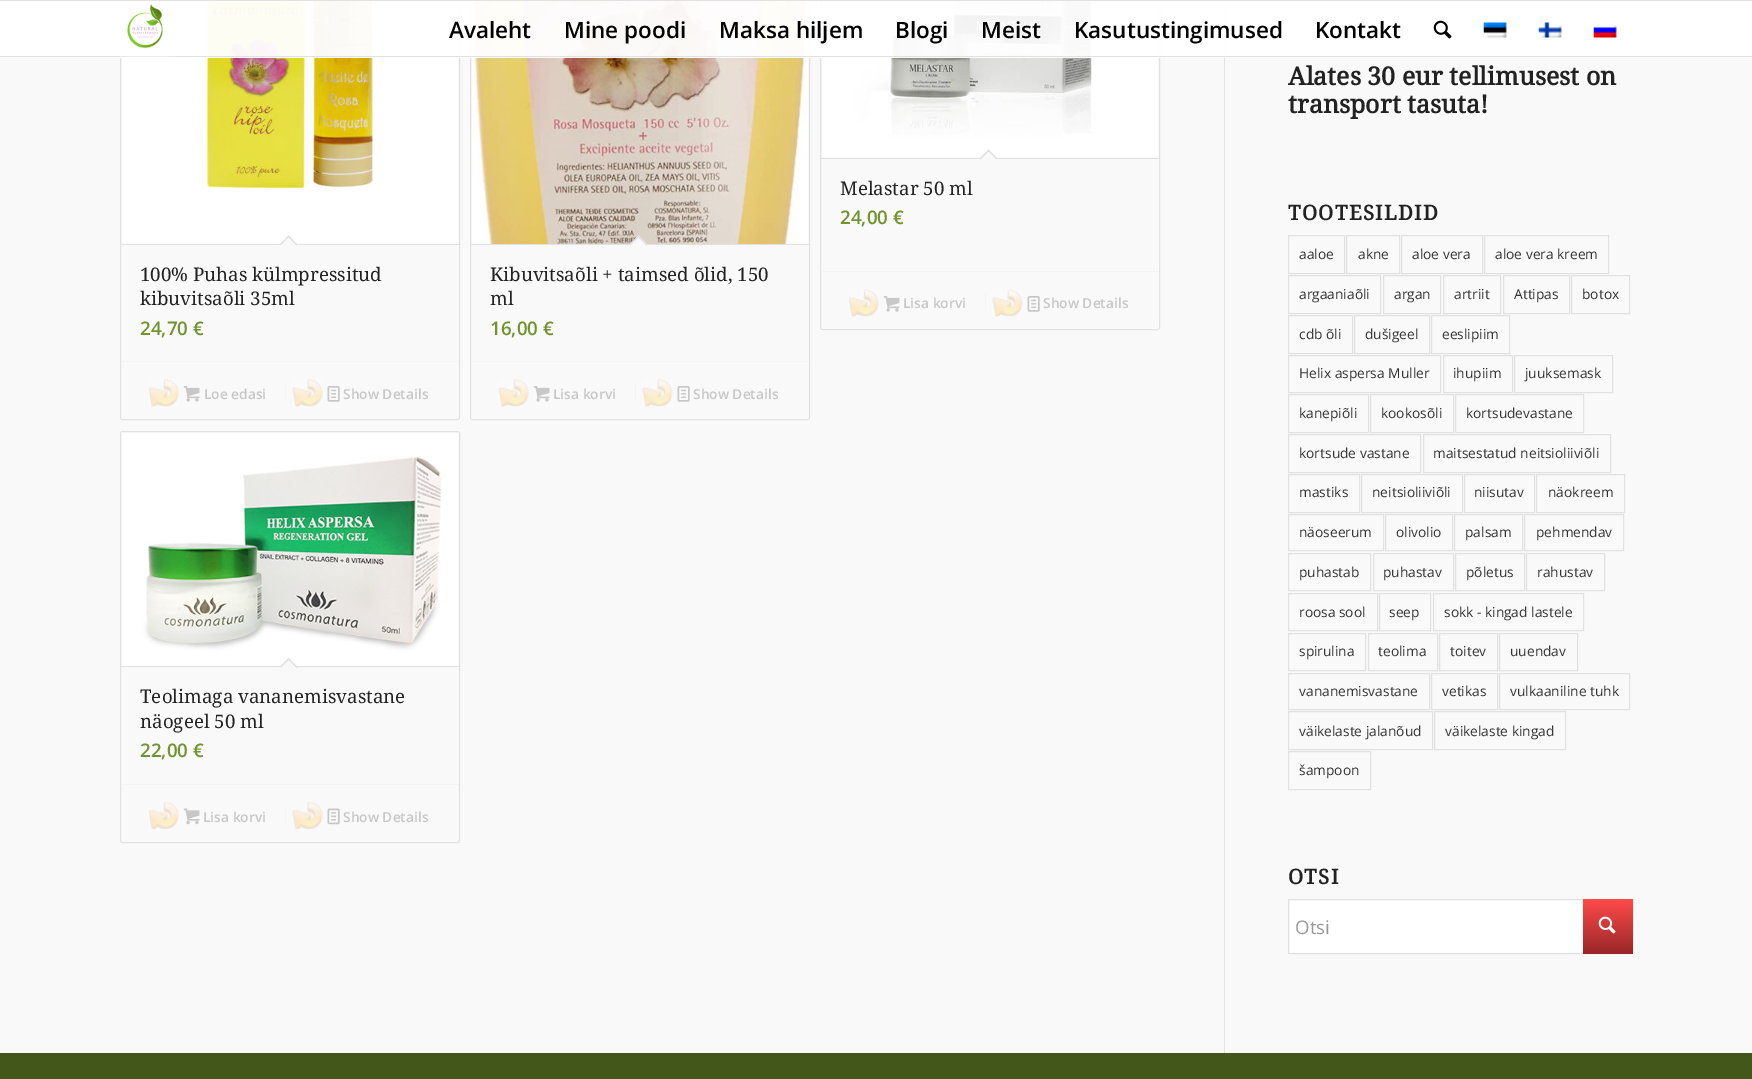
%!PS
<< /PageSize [1752 1079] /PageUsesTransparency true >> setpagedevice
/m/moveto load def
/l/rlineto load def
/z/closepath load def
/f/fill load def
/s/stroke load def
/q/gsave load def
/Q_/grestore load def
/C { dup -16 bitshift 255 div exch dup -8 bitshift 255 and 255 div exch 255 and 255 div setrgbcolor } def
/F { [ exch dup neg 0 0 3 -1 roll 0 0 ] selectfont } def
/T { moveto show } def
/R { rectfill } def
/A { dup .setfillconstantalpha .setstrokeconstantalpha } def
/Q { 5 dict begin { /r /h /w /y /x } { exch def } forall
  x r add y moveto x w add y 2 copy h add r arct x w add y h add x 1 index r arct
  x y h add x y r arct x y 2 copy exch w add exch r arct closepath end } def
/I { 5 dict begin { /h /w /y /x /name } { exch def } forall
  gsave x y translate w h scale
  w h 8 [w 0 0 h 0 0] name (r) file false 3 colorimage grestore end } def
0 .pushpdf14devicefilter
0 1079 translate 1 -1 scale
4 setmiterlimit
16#F9F9F9 C
0 0 1752 1079 R
16#E1E1E1 C
820.5 -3.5 339 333 2 Q s
(6.rgb) 822 1 336 156 I
120.5 -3.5 339 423 2 Q s
(11.rgb) 122 1 336 243 I
470.5 -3.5 339 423 2 Q s
(14.rgb) 472 1 336 243 I
1224 0 1 1054 R
0.95 A
16#FFFFFF C
0 1 1752 57 R
1 A
16#E1E1E1 C
0 0 1752 1 R
0 56 1752 1 R
(1.rgb) 120 4 55 53 I
/OpenSans-SemiBold 22.5 F
16#000000 C
(Avaleht) 449 38 T
(Mine poodi) 564 38 T
(Maksa hiljem) 719 38 T
(Blogi) 895 38 T
(Meist) 981 38 T
(Kasutustingimused) 1074 38 T
(Kontakt) 1315 38 T
(2.rgb) 1433 20 19 19 I
(3.rgb) 1483 22 24 16 I
(4.rgb) 1538 22 24 16 I
(5.rgb) 1593 24 24 14 I
16#E1E1E1 C
821 158 338 1 R
16#F9F9F9 C
988.5 149.5 m 9 9 l -9 8.5 l -9 -8.5 l z f
16#E1E1E1 C
988.5 149.5 m 9 9 l -1 1 l -9 -9 l z f
988.5 149.5 m 1 1 l -9 9 l -1 -1 l z f
/DroidSerif-Regular 18.75 F
16#222222 C
(Melastar 50 ml) 840 195 T
/OpenSans-SemiBold 18.75 F
16#719430 C
(24,00 €) 840 224 T
0.2 A
16#FFFFFF C
821 328 338 1 R
1 A
16#F4F4F4 C
821 271 338 1 R
(7.rgb) 849 289 30 28 I
(8.rgb) 883 296 17 16 I
/OpenSans-SemiBold 13.75 F
16#C7C7C7 C
(Lisa korvi) 903 308 T
16#F4F4F4 C
985 293 1 17 R
(9.rgb) 992 289 31 28 I
(10.rgb) 1027 296 13 16 I
16#C7C7C7 C
(Show Details) 1043 308 T
16#E1E1E1 C
121 244 338 1 R
16#F9F9F9 C
288.5 235.5 m 9 9 l -9 9 l -9 -9 l z f
16#E1E1E1 C
288.5 235.5 m 9 9 l -1 1 l -9 -9 l z f
288.5 235.5 m 1 1 l -9 9 l -1 -1 l z f
/DroidSerif-Regular 18.75 F
16#222222 C
(100% Puhas külmpressitud) 140 281 T
(kibuvitsaõli 35ml) 140 305 T
/OpenSans-SemiBold 18.75 F
16#719430 C
(24,70 €) 140 335 T
0.2 A
16#FFFFFF C
121 418 338 1 R
1 A
16#F4F4F4 C
121 361 338 1 R
(12.rgb) 149 379 30 28 I
(8.rgb) 183 386 17 16 I
/OpenSans-SemiBold 13.75 F
16#C7C7C7 C
(Loe edasi) 204 399 T
16#F4F4F4 C
285 384 1 17 R
(13.rgb) 292 379 31 28 I
(10.rgb) 327 386 13 16 I
16#C7C7C7 C
(Show Details) 343 399 T
16#E1E1E1 C
471 244 338 1 R
16#F9F9F9 C
638.5 235.5 m 9 9 l -9 9 l -9 -9 l z f
16#E1E1E1 C
638.5 235.5 m 9 9 l -1 1 l -9 -9 l z f
638.5 235.5 m 1 1 l -9 9 l -1 -1 l z f
/DroidSerif-Regular 18.75 F
16#222222 C
(Kibuvitsaõli + taimsed õlid, 150) 490 281 T
(ml) 490 305 T
/OpenSans-SemiBold 18.75 F
16#719430 C
(16,00 €) 490 335 T
0.2 A
16#FFFFFF C
471 418 338 1 R
1 A
16#F4F4F4 C
471 361 338 1 R
(15.rgb) 498 379 31 28 I
(8.rgb) 533 386 17 16 I
/OpenSans-SemiBold 13.75 F
16#C7C7C7 C
(Lisa korvi) 553 399 T
16#F4F4F4 C
635 384 1 17 R
(13.rgb) 642 379 31 28 I
(10.rgb) 677 386 13 16 I
16#C7C7C7 C
(Show Details) 693 399 T
16#E1E1E1 C
120.5 431.5 339 411 2 Q s
(16.rgb) 122 433 336 233 I
121 666 338 1 R
16#F9F9F9 C
288.5 658 m 9 9 l -9 9 l -9 -9 l z f
16#E1E1E1 C
288.5 658 m 9 9 l -1 1 l -9 -9 l z f
288.5 658 m 1 1 l -9 9 l -1 -1 l z f
/DroidSerif-Regular 18.75 F
16#222222 C
(Teolimaga vananemisvastane) 140 703 T
(näogeel 50 ml) 140 728 T
/OpenSans-SemiBold 18.75 F
16#719430 C
(22,00 €) 140 757 T
16#F4F4F4 C
121 784 338 1 R
(17.rgb) 149 802 30 27 I
(18.rgb) 183 808 17 17 I
/OpenSans-SemiBold 13.75 F
16#C7C7C7 C
(Lisa korvi) 203 822 T
16#F4F4F4 C
285 806 1 18 R
(19.rgb) 292 802 31 27 I
(20.rgb) 327 808 13 17 I
16#C7C7C7 C
(Show Details) 343 822 T
/DroidSerif-Bold 25 F
16#222222 C
(Alates 30 eur tellimusest on) 1288 85 T
(transport tasuta!) 1288 113 T
/DroidSerif-Bold 20.5 F
1288 220 m 1.25 0 (TOOTESILDID) ashow
16#E1E1E1 C
1288.5 235.5 56 38 rectstroke
/OpenSans-Regular 13.75 F
16#333333 C
(aaloe) 1299 259 T
16#E1E1E1 C
1346.5 235.5 53 38 rectstroke
16#333333 C
(akne) 1358 259 T
16#E1E1E1 C
1401.5 235.5 81 38 rectstroke
16#333333 C
(aloe vera) 1412 259 T
16#E1E1E1 C
1484.5 235.5 124 38 rectstroke
16#333333 C
(aloe vera kreem) 1495 259 T
16#E1E1E1 C
1288.5 275.5 92 38 rectstroke
16#333333 C
(argaaniaõli) 1299 299 T
16#E1E1E1 C
1383.5 275.5 57 38 rectstroke
16#333333 C
(argan) 1394 299 T
16#E1E1E1 C
1443.5 275.5 57 38 rectstroke
16#333333 C
(artriit) 1454 299 T
16#E1E1E1 C
1503.5 275.5 66 38 rectstroke
16#333333 C
(Attipas) 1514 299 T
16#E1E1E1 C
1571.5 275.5 58 38 rectstroke
16#333333 C
(botox) 1582 299 T
16#E1E1E1 C
1288.5 315.5 64 38 rectstroke
16#333333 C
(cdb õli) 1299 339 T
16#E1E1E1 C
1354.5 315.5 75 38 rectstroke
16#333333 C
(dušigeel) 1365 339 T
16#E1E1E1 C
1431.5 315.5 78 38 rectstroke
16#333333 C
(eeslipiim) 1442 339 T
16#E1E1E1 C
1288.5 355.5 152 37 rectstroke
16#333333 C
(Helix aspersa Muller) 1299 378 T
16#E1E1E1 C
1443.5 355.5 69 37 rectstroke
16#333333 C
(ihupiim) 1453 378 T
16#E1E1E1 C
1514.5 355.5 98 37 rectstroke
16#333333 C
(juuksemask) 1525 378 T
16#E1E1E1 C
1288.5 394.5 80 38 rectstroke
16#333333 C
(kanepiõli) 1299 418 T
16#E1E1E1 C
1370.5 394.5 83 38 rectstroke
16#333333 C
(kookosõli) 1381 418 T
16#E1E1E1 C
1455.5 394.5 128 38 rectstroke
16#333333 C
(kortsudevastane) 1466 418 T
16#E1E1E1 C
1288.5 434.5 132 38 rectstroke
16#333333 C
(kortsude vastane) 1299 458 T
16#E1E1E1 C
1423.5 434.5 187 38 rectstroke
16#333333 C
(maitsestatud neitsioliiviõli) 1433 458 T
16#E1E1E1 C
1288.5 474.5 71 38 rectstroke
16#333333 C
(mastiks) 1299 497 T
16#E1E1E1 C
1361.5 474.5 101 38 rectstroke
16#333333 C
(neitsioliiviõli) 1372 497 T
16#E1E1E1 C
1464.5 474.5 70 38 rectstroke
16#333333 C
(niisutav) 1474 497 T
16#E1E1E1 C
1536.5 474.5 88 38 rectstroke
16#333333 C
(näokreem) 1548 497 T
16#E1E1E1 C
1288.5 514.5 95 36 rectstroke
16#333333 C
(näoseerum) 1299 537 T
16#E1E1E1 C
1385.5 514.5 67 36 rectstroke
16#333333 C
(olivolio) 1396 537 T
16#E1E1E1 C
1454.5 514.5 68 36 rectstroke
16#333333 C
(palsam) 1465 537 T
16#E1E1E1 C
1524.5 514.5 99 36 rectstroke
16#333333 C
(pehmendav) 1536 537 T
16#E1E1E1 C
1288.5 553.5 82 37 rectstroke
16#333333 C
(puhastab) 1299 577 T
16#E1E1E1 C
1373.5 553.5 80 37 rectstroke
16#333333 C
(puhastav) 1383 577 T
16#E1E1E1 C
1455.5 553.5 69 37 rectstroke
16#333333 C
(põletus) 1466 577 T
16#E1E1E1 C
1526.5 553.5 78 37 rectstroke
16#333333 C
(rahustav) 1537 577 T
16#E1E1E1 C
1288.5 593.5 89 37 rectstroke
16#333333 C
(roosa sool) 1299 617 T
16#E1E1E1 C
1379.5 593.5 51 37 rectstroke
16#333333 C
(seep) 1389 617 T
16#E1E1E1 C
1433.5 593.5 150 37 rectstroke
16#333333 C
(sokk - kingad lastele) 1444 617 T
16#E1E1E1 C
1288.5 633.5 77 37 rectstroke
16#333333 C
(spirulina) 1299 656 T
16#E1E1E1 C
1368.5 633.5 69 37 rectstroke
16#333333 C
(teolima) 1378 656 T
16#E1E1E1 C
1439.5 633.5 58 37 rectstroke
16#333333 C
(toitev) 1450 656 T
16#E1E1E1 C
1499.5 633.5 78 37 rectstroke
16#333333 C
(uuendav) 1510 656 T
16#E1E1E1 C
1288.5 673.5 141 36 rectstroke
16#333333 C
(vananemisvastane) 1299 696 T
16#E1E1E1 C
1431.5 673.5 66 36 rectstroke
16#333333 C
(vetikas) 1442 696 T
16#E1E1E1 C
1499.5 673.5 130 36 rectstroke
16#333333 C
(vulkaaniline tuhk) 1510 696 T
16#E1E1E1 C
1288.5 711.5 144 38 rectstroke
16#333333 C
(väikelaste jalanõud) 1299 736 T
16#E1E1E1 C
1434.5 711.5 131 38 rectstroke
16#333333 C
(väikelaste kingad) 1445 736 T
16#E1E1E1 C
1288.5 751.5 82 38 rectstroke
16#333333 C
(šampoon) 1299 775 T
/DroidSerif-Bold 20.5 F
16#222222 C
1288 884 m 1.25 0 (OTSI) ashow
16#FFFFFF C
1289 900 294 53 R
16#E1E1E1 C
1288.5 899.5 344 54 rectstroke
/OpenSans-Regular 18.75 F
16#999999 C
(Otsi) 1295 934 T
q 1583 899 m 50 0 l 0 55 l -50 0 l z clip newpath
<< /ShadingType 2 /ColorSpace /DeviceRGB /Coords [1608 899 1608 954] /Extend [true true] /Function << /FunctionType 2 /Domain [0 1] /C0 [1 .29 .29] /C1 [.6 .153 .153] /N 1 >> >> shfill Q_
(21.rgb) 1598 916 18 18 I
16#425719 C
0 1053 1752 26 R
.poppdf14devicefilter showpage
